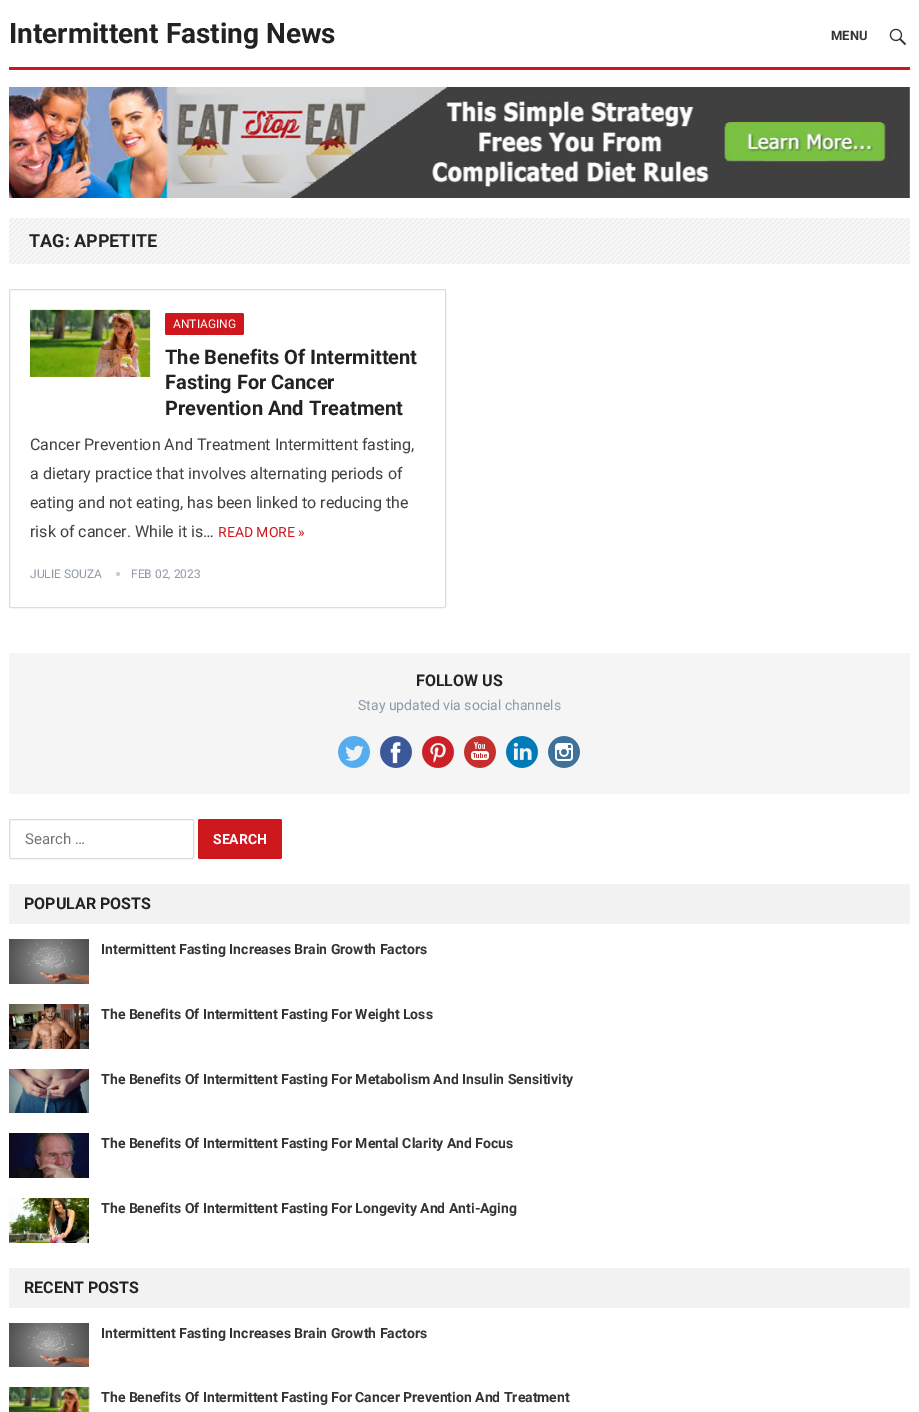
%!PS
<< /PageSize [919 1412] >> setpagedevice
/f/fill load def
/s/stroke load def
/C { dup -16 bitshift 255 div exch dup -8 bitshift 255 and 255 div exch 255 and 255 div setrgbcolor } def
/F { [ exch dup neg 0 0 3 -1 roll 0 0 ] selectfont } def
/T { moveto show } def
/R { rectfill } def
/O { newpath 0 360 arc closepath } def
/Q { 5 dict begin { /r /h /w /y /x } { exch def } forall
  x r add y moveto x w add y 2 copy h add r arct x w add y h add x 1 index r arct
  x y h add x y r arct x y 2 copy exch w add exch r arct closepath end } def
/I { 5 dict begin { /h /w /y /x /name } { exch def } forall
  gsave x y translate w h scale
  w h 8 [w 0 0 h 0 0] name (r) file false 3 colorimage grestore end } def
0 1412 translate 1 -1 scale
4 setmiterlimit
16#FFFFFF C
0 0 919 1412 R
16#CE181E C
9 67 901 3 R
/Roboto-Bold 28 F
16#222222 C
(Intermittent Fasting News) 9 43 T
(1.rgb) 9 87 901 111 I
/Roboto-Bold 13 F
16#333333 C
(MENU) 831 40 T
(2.rgb) 889 28 18 18 I
(3.rgb) 9 218 901 46 I
/Roboto-Bold 18 F
16#222222 C
(TAG: APPETITE) 29 247 T
16#DDDDDD C
9.5 289.5 436 318 1.5 Q s
(4.rgb) 30 309 121 68 I
16#CE181E C
165 313 79 22 2 Q f
/Roboto-Regular 12 F
16#FFFFFF C
(ANTIAGING) 173 328 T
/Roboto-Bold 20 F
16#222222 C
(The Benefits Of Intermittent) 165 364 T
(Fasting For Cancer) 165 389 T
(Prevention And Treatment) 165 415 T
/Roboto-Regular 16 F
16#414141 C
(Cancer Prevention And Treatment Intermittent fasting,) 30 450 T
(a dietary practice that involves alternating periods of) 30 479 T
(eating and not eating, has been linked to reducing the) 30 508 T
(risk of cancer. While it is…) 30 537 T
/Roboto-Regular 14 F
16#CE181E C
(READ MORE ») 218 537 T
/Roboto-Regular 12 F
16#8E99A9 C
(JULIE SOUZA) 30 578 T
16#CCCCCC C
118 574 2 O f
16#8E99A9 C
(FEB 02, 2023) 131 578 T
16#F5F5F5 C
9 653 901 141 2 Q f
/Roboto-Bold 16 F
16#222222 C
(FOLLOW US) 416 686 T
/Roboto-Regular 14 F
16#8E99A9 C
(Stay updated via social channels) 358 710 T
(5.rgb) 338 736 32 32 I
(6.rgb) 380 736 32 32 I
(7.rgb) 422 736 32 32 I
(8.rgb) 464 736 32 32 I
(9.rgb) 506 736 32 32 I
(10.rgb) 548 736 32 32 I
16#DDDDDD C
9.5 819.5 184 39 1.5 Q s
/Roboto-Regular 15 F
16#757575 C
(Search …) 25 844 T
16#CE181E C
198 819 84 40 2 Q f
/Roboto-Bold 14 F
16#FFFFFF C
(SEARCH) 213 844 T
16#F2F2F2 C
9 884 901 40 2 Q f
/Roboto-Bold 16 F
16#222222 C
(POPULAR POSTS) 24 909 T
(11.rgb) 9 939 80 45 I
/Roboto-Bold 14 F
16#333333 C
(Intermittent Fasting Increases Brain Growth Factors) 101 954 T
(12.rgb) 9 1004 80 45 I
(The Benefits Of Intermittent Fasting For Weight Loss) 101 1019 T
(13.rgb) 9 1069 80 44 I
(The Benefits Of Intermittent Fasting For Metabolism And Insulin Sensitivity) 101 1084 T
(14.rgb) 9 1133 80 45 I
(The Benefits Of Intermittent Fasting For Mental Clarity And Focus) 101 1148 T
(15.rgb) 9 1198 80 45 I
(The Benefits Of Intermittent Fasting For Longevity And Anti-Aging) 101 1213 T
16#F2F2F2 C
9 1268 901 40 2 Q f
/Roboto-Bold 16 F
16#222222 C
(RECENT POSTS) 24 1293 T
(16.rgb) 9 1323 80 44 I
/Roboto-Bold 14 F
16#333333 C
(Intermittent Fasting Increases Brain Growth Factors) 101 1338 T
(17.rgb) 9 1387 81 25 I
(The Benefits Of Intermittent Fasting For Cancer Prevention And Treatment) 101 1402 T
showpage
